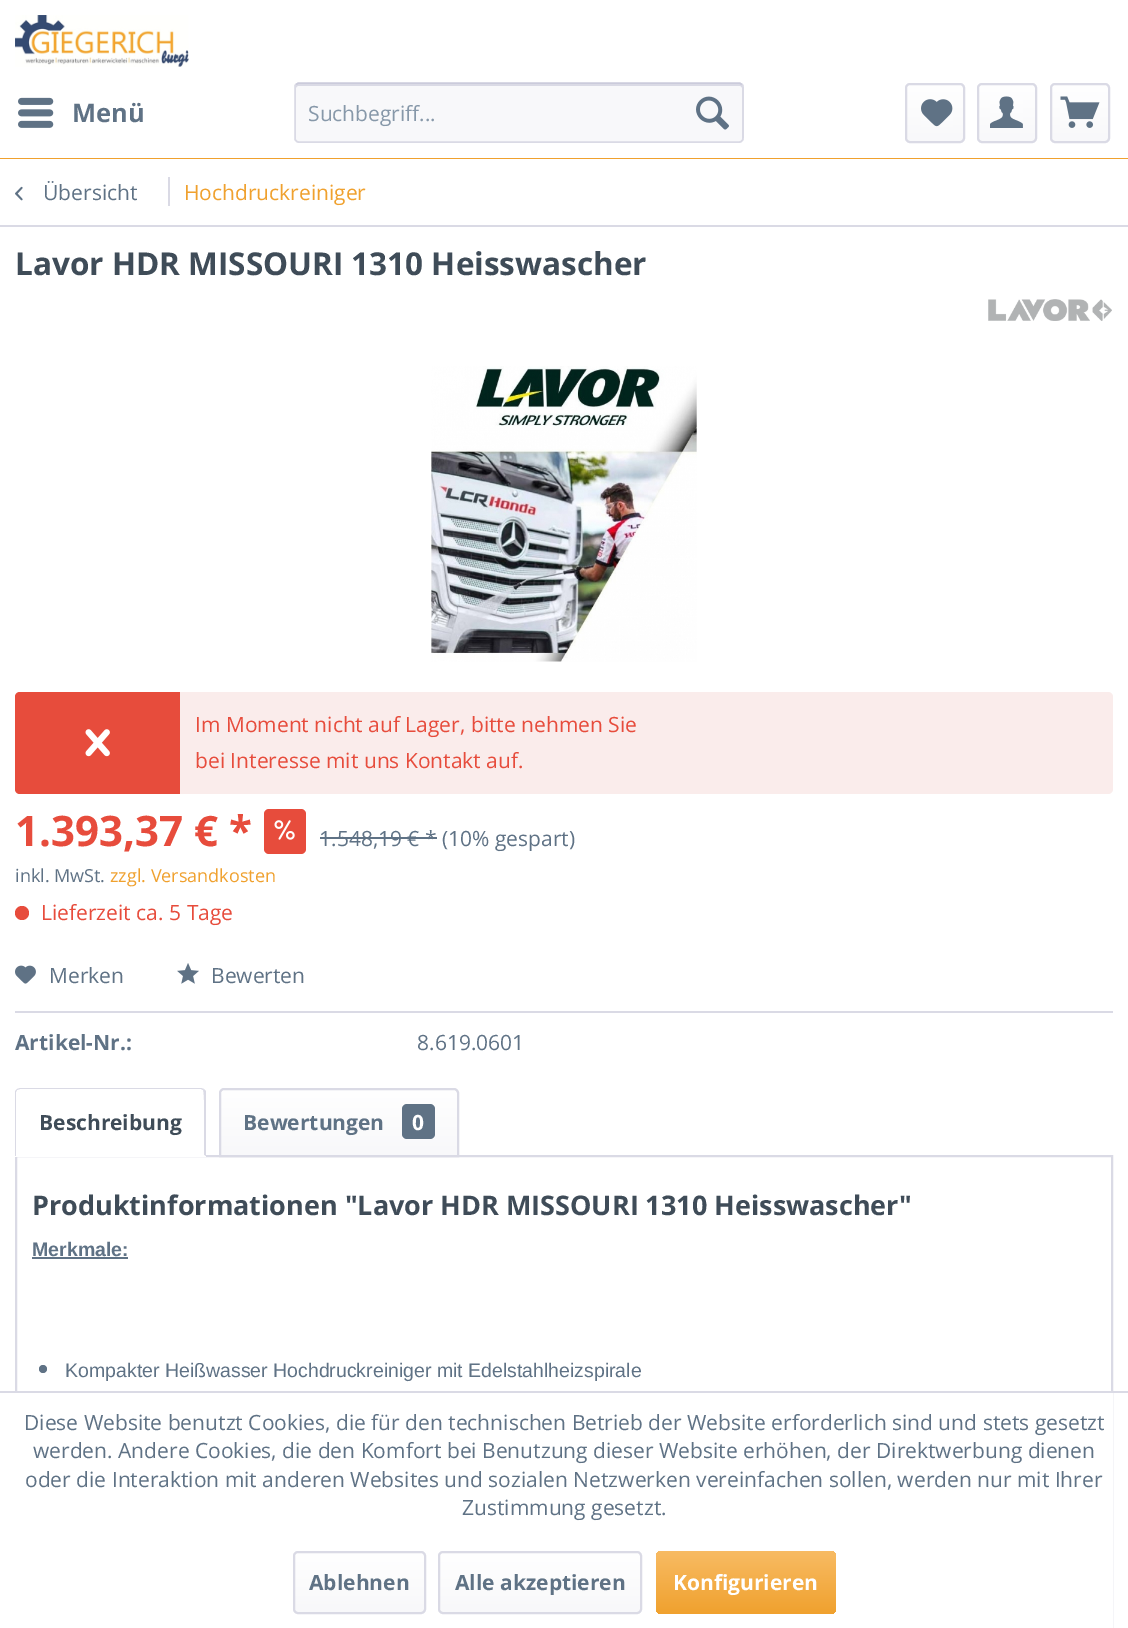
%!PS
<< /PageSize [1128 1628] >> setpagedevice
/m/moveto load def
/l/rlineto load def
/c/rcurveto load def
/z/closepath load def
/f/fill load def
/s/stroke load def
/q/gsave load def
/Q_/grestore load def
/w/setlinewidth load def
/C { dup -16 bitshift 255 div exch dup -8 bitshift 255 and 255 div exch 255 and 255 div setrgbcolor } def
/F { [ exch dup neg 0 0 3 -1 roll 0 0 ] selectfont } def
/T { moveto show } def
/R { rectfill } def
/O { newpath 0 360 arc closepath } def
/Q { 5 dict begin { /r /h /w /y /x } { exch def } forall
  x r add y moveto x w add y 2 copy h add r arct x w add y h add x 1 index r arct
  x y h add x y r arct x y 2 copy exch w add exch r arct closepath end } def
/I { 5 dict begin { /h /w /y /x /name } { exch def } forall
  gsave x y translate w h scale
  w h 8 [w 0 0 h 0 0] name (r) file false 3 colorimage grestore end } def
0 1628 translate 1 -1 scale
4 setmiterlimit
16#FFFFFF C
0 0 1128 1628 R
16#F0A12E C
0 158 1128 1 R
(1.rgb) 15 15 174 52 I
(2.rgb) 18 97 36 31 I
/OpenSans-Bold 25.5 F
16#5F7285 C
(Menü) 72 122 T
16#F8F8FA C
294 83 450 60 5 Q f
16#DADAE5 C
298 86 m 442 0 l 1 0 2 1 2 2 c 0 52 l 1 0 1 -1 1 -2 c 0 -51 l 0 -2 -1 -3 -3 -3 c -441 0 l -2 0 -3 1 -3 3 c 0 1 l 0 -1 1 -2 2 -2 c z f
16#CBCBDB C
1.5 w
296 84.5 m 2.5 -1.5 l 441 0 l 2.5 1.5 l s
16#DADAE5 C
742 84.5 m 1 .5 1 1.5 1 2.5 c 0 51 l 0 1 0 2 -1 2.5 c -.5 1 -1.5 1.5 -2.5 1.5 c -441 0 l -1 0 -2 -.5 -2.5 -1.5 c -1 -.5 -1 -1.5 -1 -2.5 c 0 -51 l 0 -1 0 -2 1 -2.5 c s
/OpenSans-Regular 21 F
16#8798A9 C
(Suchbegriff...) 308 121 T
(3.rgb) 696 96 33 34 I
q 906 84 57 57 3 Q clip newpath
<< /ShadingType 2 /ColorSpace /DeviceRGB /Coords [935 84 935 141] /Extend [true true] /Function << /FunctionType 2 /Domain [0 1] /C0 [1 1 1] /C1 [.973 .973 .98] /N 1 >> >> shfill Q_
16#DADAE5 C
2 w
906 84 58 58 4 Q s
(4.rgb) 921 99 32 28 I
q 978 84 57 57 3 Q clip newpath
<< /ShadingType 2 /ColorSpace /DeviceRGB /Coords [1007 84 1007 141] /Extend [true true] /Function << /FunctionType 2 /Domain [0 1] /C0 [1 1 1] /C1 [.973 .973 .98] /N 1 >> >> shfill Q_
978 84 58 58 4 Q s
(5.rgb) 990 96 33 32 I
q 1052 84 57 57 3 Q clip newpath
<< /ShadingType 2 /ColorSpace /DeviceRGB /Coords [1080 84 1080 141] /Extend [true true] /Function << /FunctionType 2 /Domain [0 1] /C0 [1 1 1] /C1 [.973 .973 .98] /N 1 >> >> shfill Q_
1051 84 58 58 4 Q s
(6.rgb) 1060 96 40 32 I
0 225 1128 2 R
(7.rgb) 15 186 8 15 I
16#5F7285 C
(Übersicht) 43 200 T
16#DADAE5 C
168 177 2 29 R
16#F0A12E C
(Hochdruckreiniger) 184 200 T
/OpenSans-Bold 31.5 F
16#3F4C58 C
(Lavor HDR MISSOURI 1310 Heisswascher) 15 275 T
(8.rgb) 988 299 124 22 I
(9.rgb) 431 366 266 296 I
16#FAECEB C
15 692 1098 102 5 Q f
16#E74C3C C
20 692 m 160 0 l 0 102 l -160 0 l -3 0 -5 -2 -5 -5 c 0 -92 l 0 -3 2 -5 5 -5 c z f
(10.rgb) 85 729 25 28 I
/OpenSans-Regular 21 F
(Im Moment nicht auf Lager, bitte nehmen Sie) 195 732 T
(bei Interesse mit uns Kontakt auf.) 195 768 T
/OpenSans-Bold 42 F
(1.393,37 € *) 15 846 T
264 809 42 45 5 Q f
(11.rgb) 274 820 21 20 I
/OpenSans-Regular 21 F
16#5F7285 C
(1.548,19 € * \(10% gespart\)) 319 846 T
320 837 117 2 R
/OpenSans-Regular 18 F
(inkl. MwSt.) 15 882 T
16#F0A12E C
(zzgl. Versandkosten) 110 882 T
16#E74C3C C
22 913 7 O f
/OpenSans-Regular 21 F
(Lieferzeit ca. 5 Tage) 41 920 T
16#DADAE5 C
15 1011 1098 2 R
(12.rgb) 15 965 21 19 I
16#5F7285 C
(Merken) 49 983 T
(13.rgb) 177 963 22 21 I
(Bewerten) 211 983 T
/OpenSans-Bold 21 F
(Artikel-Nr.:) 15 1050 T
/OpenSans-Regular 21 F
(8.619.0601) 417 1050 T
16#DADAE5 C
16 1156 1096 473 rectstroke
16#FFFFFF C
20 1088 m 181 0 l 3 0 5 2 5 5 c 0 64 l -191 0 l 0 -64 l 0 -3 2 -5 5 -5 c z f
16#DADAE5 C
20 1088 m -3 1 l 0 1 l 3 -1 l 181 0 l 2 1 l 1 -1 l -3 -1 l z f
206 1156 m -2 -1 l 0 -7 1 -64 -1 -65 c 1 -1 l 2 2 l z f
16#FFFFFF C
205 1156 m -189 0 l 0 -1 l 188 0 l z f
16#DADAE5 C
15 1092 m 0 64 l 1 0 l 0 -1 l 0 -63 l 1 -2 l 0 -1 l -1 1 -2 2 -2 3 c z f
/OpenSans-Bold 21 F
16#3F4C58 C
(Beschreibung) 39 1130 T
q 224 1089 m 231 0 l 1.5 0 3 1.5 3 3 c 0 63 l -237 0 l 0 -63 l 0 -1.5 1.5 -3 3 -3 c z clip newpath
<< /ShadingType 2 /ColorSpace /DeviceRGB /Coords [339 1089 339 1155] /Extend [true true] /Function << /FunctionType 2 /Domain [0 1] /C0 [1 1 1] /C1 [.973 .973 .98] /N 1 >> >> shfill Q_
16#DADAE5 C
224 1089 m 230 0 l 2 0 4 2 4 4 c 0 63 l -238 0 l 0 -63 l 0 -2 2 -4 4 -4 c z s
16#5F7285 C
(Bewertungen) 243 1130 T
402 1104 33 35 5 Q f
16#FFFFFF C
(0) 412 1130 T
/OpenSans-Bold 27 F
16#3F4C58 C
(Produktinformationen "Lavor HDR MISSOURI 1310 Heisswascher") 32 1215 T
/LiberationSans-Bold 19.5 F
16#5F7285 C
(Merkmale:) 32 1256 T
32 1257 96 2 R
43 1369 4 O f
/LiberationSans-Regular 19.5 F
(Kompakter Heißwasser Hochdruckreiniger mit Edelstahlheizspirale) 65 1377 T
16#FFFFFF C
15 1393 1098 235 R
16#DADAE5 C
0 1391 1128 2 R
/OpenSans-Regular 21 F
16#5F7285 C
(Diese Website benutzt Cookies, die für den technischen Betrieb der Website erforderlich sind und stets gesetzt) 24 1430 T
(werden. Andere Cookies, die den Komfort bei Benutzung dieser Website erhöhen, der Direktwerbung dienen) 33 1458 T
(oder die Interaktion mit anderen Websites und sozialen Netzwerken vereinfachen sollen, werden nur mit Ihrer) 25 1487 T
(Zustimmung gesetzt.) 462 1515 T
q 294 1553 131 60 3 Q clip newpath
<< /ShadingType 2 /ColorSpace /DeviceRGB /Coords [359 1553 359 1613] /Extend [true true] /Function << /FunctionType 2 /Domain [0 1] /C0 [1 1 1] /C1 [.973 .973 .98] /N 1 >> >> shfill Q_
16#DADAE5 C
294 1552 131 61 4 Q s
/OpenSans-Bold 21 F
16#5F7285 C
(Ablehnen) 309 1590 T
q 440 1553 201 60 3 Q clip newpath
<< /ShadingType 2 /ColorSpace /DeviceRGB /Coords [540 1553 540 1613] /Extend [true true] /Function << /FunctionType 2 /Domain [0 1] /C0 [1 1 1] /C1 [.973 .973 .98] /N 1 >> >> shfill Q_
16#DADAE5 C
439 1552 202 61 4 Q s
16#5F7285 C
(Alle akzeptieren) 455 1590 T
q 656 1551 180 63 5 Q clip newpath
<< /ShadingType 2 /ColorSpace /DeviceRGB /Coords [746 1551 746 1614] /Extend [true true] /Function << /FunctionType 2 /Domain [0 1] /C0 [.973 .733 .388] /C1 [.941 .631 .18] /N 1 >> >> shfill Q_
16#FFFFFF C
(Konfigurieren) 673 1590 T
showpage
